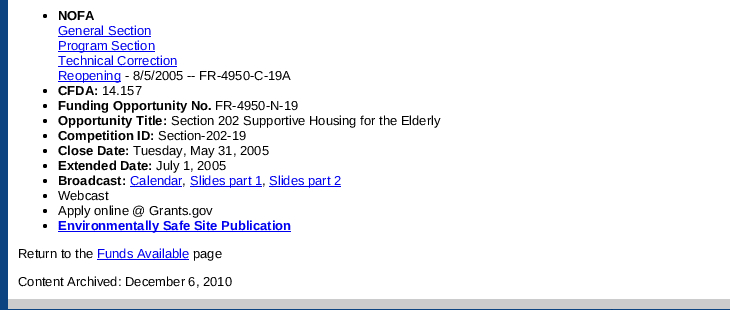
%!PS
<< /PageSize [730 310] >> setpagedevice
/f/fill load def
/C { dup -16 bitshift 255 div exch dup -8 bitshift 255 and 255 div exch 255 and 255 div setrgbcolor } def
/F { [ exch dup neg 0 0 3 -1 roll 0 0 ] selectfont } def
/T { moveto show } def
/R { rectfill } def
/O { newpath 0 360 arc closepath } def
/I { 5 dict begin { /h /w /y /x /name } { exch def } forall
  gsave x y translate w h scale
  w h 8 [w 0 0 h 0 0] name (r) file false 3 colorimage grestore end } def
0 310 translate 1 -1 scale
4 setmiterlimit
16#0C4481 C
0 0 730 310 R
16#FFFFFF C
8 0 722 299 R
16#000000 C
45 16 2 O f
/LiberationSans-Bold 13 F
(NOFA) 58 20 T
/LiberationSans-Regular 13 F
16#0000EE C
(General Section) 58 35 T
58 36 93 1 R
58 51 97 1 R
(Program Section) 58 50 T
(Technical Correction) 58 65 T
58 66 119 1 R
58 81 63 1 R
(Reopening) 58 80 T
16#000000 C
(- 8/5/2005 -- FR-4950-C-19A) 125 80 T
45 91 2 O f
/LiberationSans-Bold 13 F
(CFDA:) 58 95 T
/LiberationSans-Regular 13 F
(14.157) 102 95 T
45 106 2 O f
/LiberationSans-Bold 13 F
(Funding Opportunity No.) 58 110 T
/LiberationSans-Regular 13 F
(FR-4950-N-19) 215 110 T
45 121 2 O f
/LiberationSans-Bold 13 F
(Opportunity Title:) 58 125 T
/LiberationSans-Regular 13 F
(Section 202 Supportive Housing for the Elderly) 171 125 T
45 136 2 O f
/LiberationSans-Bold 13 F
(Competition ID:) 58 140 T
/LiberationSans-Regular 13 F
(Section-202-19) 158 140 T
45 151 2 O f
/LiberationSans-Bold 13 F
(Close Date:) 58 155 T
/LiberationSans-Regular 13 F
(Tuesday, May 31, 2005) 133 155 T
45 166 2 O f
/LiberationSans-Bold 13 F
(Extended Date:) 58 170 T
/LiberationSans-Regular 13 F
(July 1, 2005) 156 170 T
45 181 2 O f
/LiberationSans-Bold 13 F
(Broadcast:) 58 185 T
/LiberationSans-Regular 13 F
16#0000EE C
(Calendar) 130 185 T
190 186 72 1 R
(Slides part 1) 190 185 T
269 186 72 1 R
(Slides part 2) 269 185 T
16#000000 C
(,) 182 185 T
16#0000EE C
130 186 52 1 R
16#000000 C
(,) 262 185 T
45 196 2 O f
(Webcast) 58 200 T
45 211 2 O f
(Apply online @ Grants.gov) 58 215 T
45 226 2 O f
16#0000EE C
58 231 233 1 R
/LiberationSans-Bold 13 F
(Environmentally Safe Site Publication) 58 230 T
/LiberationSans-Regular 13 F
16#000000 C
(Return to the) 18 258 T
16#0000EE C
(Funds Available) 97 258 T
16#000000 C
(page) 193 258 T
16#0000EE C
97 259 92 1 R
16#000000 C
(Content Archived: December 6, 2010) 18 286 T
16#CCCCCC C
8 299 722 10 R
(1.rgb) 611 309 2 1 I
showpage
